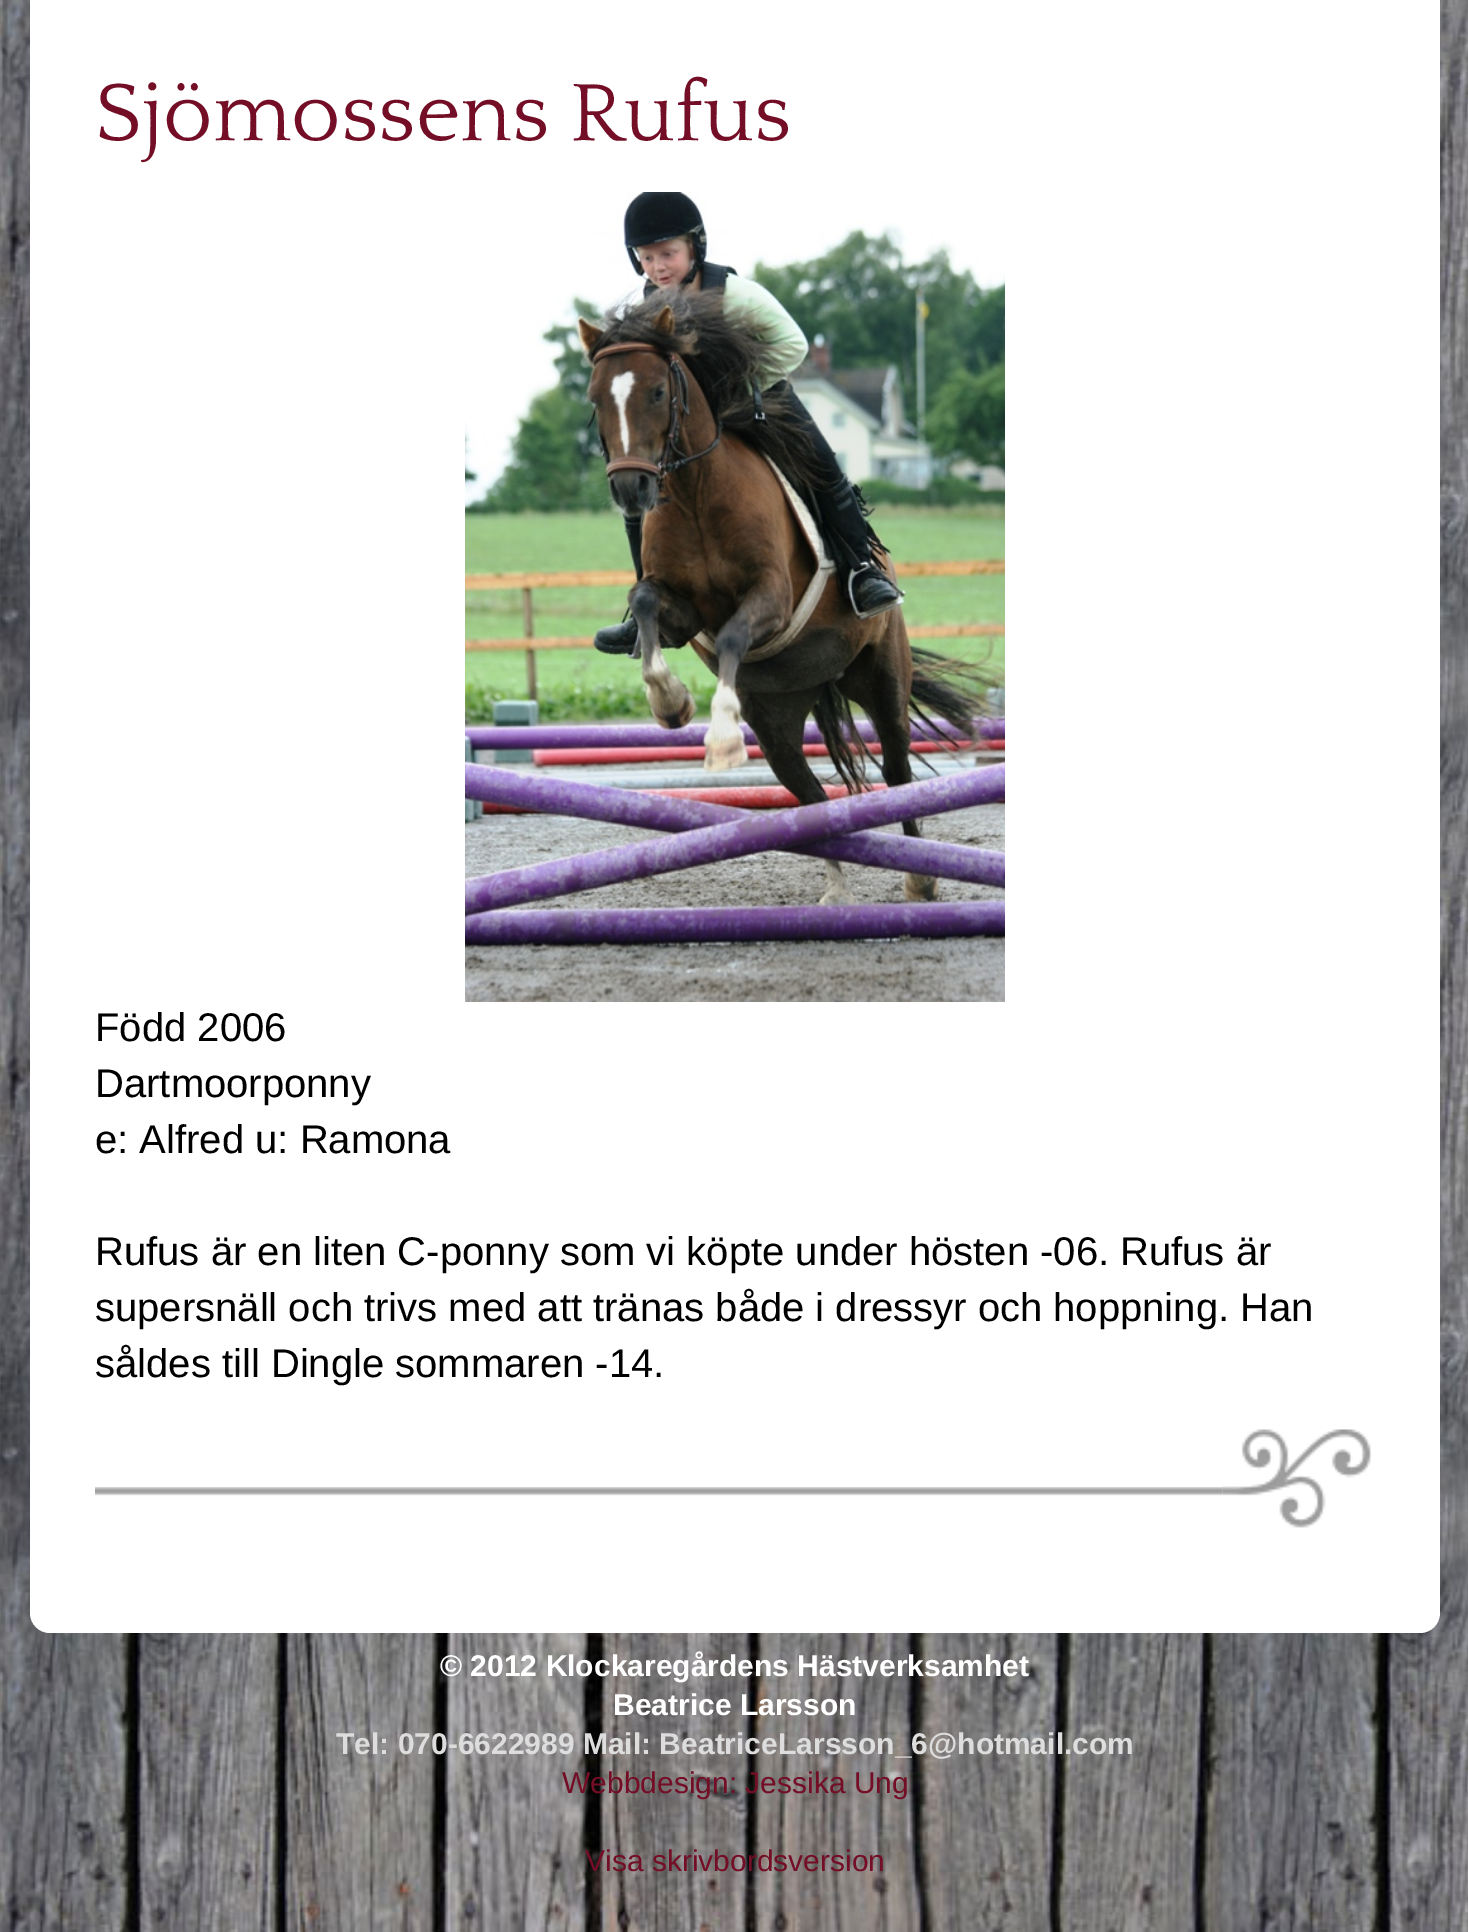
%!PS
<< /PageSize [1468 1932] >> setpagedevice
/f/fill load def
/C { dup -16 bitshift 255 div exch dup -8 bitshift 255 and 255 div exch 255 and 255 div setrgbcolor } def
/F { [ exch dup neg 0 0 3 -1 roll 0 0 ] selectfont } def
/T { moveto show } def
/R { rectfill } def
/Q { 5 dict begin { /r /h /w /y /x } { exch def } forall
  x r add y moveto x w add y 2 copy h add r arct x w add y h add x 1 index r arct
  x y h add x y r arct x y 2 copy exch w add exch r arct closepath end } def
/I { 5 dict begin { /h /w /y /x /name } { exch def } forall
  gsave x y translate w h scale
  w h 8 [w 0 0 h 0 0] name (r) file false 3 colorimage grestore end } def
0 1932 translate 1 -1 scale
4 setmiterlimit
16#FFFFFF C
0 0 1468 1932 R
(1.rgb) 0 0 1468 1932 I
30 -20 1410 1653 20 Q f
/Quattrocento-Regular 85 F
16#740E26 C
(Sjömossens Rufus) 95 140 T
(2.rgb) 465 192 540 810 I
/LiberationSans-Regular 40 F
16#000000 C
(Född 2006) 95 1041 T
(Dartmoorponny) 95 1097 T
(e: Alfred u: Ramona) 95 1153 T
(Rufus är en liten C-ponny som vi köpte under hösten -06. Rufus är) 95 1265 T
(supersnäll och trivs med att tränas både i dressyr och hoppning. Han) 95 1321 T
(såldes till Dingle sommaren -14.) 95 1377 T
(3.rgb) 1222 1429 149 99 I
(4.rgb) 95 1487 1128 9 I
/LiberationSans-Bold 30 F
16#FFFFFF C
(© 2012 Klockaregårdens Hästverksamhet) 440 1676 T
(Beatrice Larsson) 613 1715 T
16#DDDDDD C
(Tel: 070-6622989 Mail: BeatriceLarsson_6@hotmail.com) 336 1754 T
/LiberationSans-Regular 30 F
16#740E26 C
(Webbdesign: Jessika Ung) 562 1793 T
(Visa skrivbordsversion) 585 1871 T
showpage
